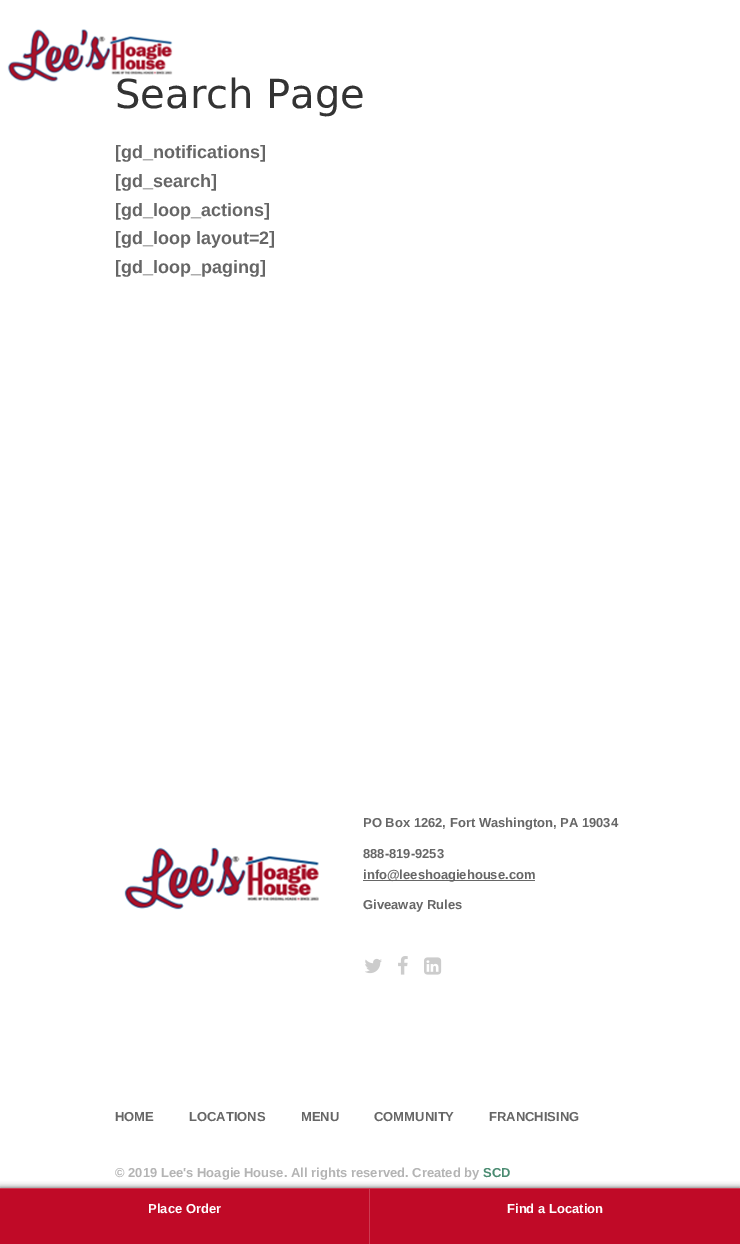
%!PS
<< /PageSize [740 1244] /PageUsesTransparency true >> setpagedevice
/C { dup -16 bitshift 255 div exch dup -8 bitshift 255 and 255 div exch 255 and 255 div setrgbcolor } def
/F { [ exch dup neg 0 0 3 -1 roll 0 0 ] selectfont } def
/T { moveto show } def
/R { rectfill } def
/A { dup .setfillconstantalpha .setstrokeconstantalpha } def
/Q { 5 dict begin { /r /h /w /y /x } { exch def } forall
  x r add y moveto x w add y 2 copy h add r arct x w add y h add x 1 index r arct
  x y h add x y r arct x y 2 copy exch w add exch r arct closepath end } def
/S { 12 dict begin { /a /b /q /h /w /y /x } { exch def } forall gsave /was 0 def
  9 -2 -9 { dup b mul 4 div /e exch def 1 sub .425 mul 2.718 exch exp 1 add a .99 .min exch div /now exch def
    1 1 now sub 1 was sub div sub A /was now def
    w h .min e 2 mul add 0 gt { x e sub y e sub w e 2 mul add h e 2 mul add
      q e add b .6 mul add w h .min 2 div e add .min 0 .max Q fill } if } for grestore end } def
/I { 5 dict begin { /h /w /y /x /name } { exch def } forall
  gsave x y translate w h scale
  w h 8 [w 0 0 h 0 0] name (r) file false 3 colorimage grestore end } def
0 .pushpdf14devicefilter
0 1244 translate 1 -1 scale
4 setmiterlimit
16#FFFFFF C
0 0 740 1244 R
/DejaVuSans-Regular 40 F
16#333333 C
(Search Page) 115 108 T
(1.rgb) 7 29 166 53 I
/LiberationSans-Bold 18 F
16#666666 C
([gd_notifications]) 115 158 T
([gd_search]) 115 187 T
([gd_loop_actions]) 115 216 T
([gd_loop layout=2]) 115 244 T
([gd_loop_paging]) 115 273 T
(2.rgb) 124 847 195 63 I
/LiberationSans-Bold 13 F
(PO Box 1262, Fort Washington, PA 19034) 363 827 T
(888-819-9253) 363 858 T
363 880 172 1 R
(info@leeshoagiehouse.com) 363 879 T
(Giveaway Rules) 363 909 T
(3.rgb) 365 958 17 16 I
(4.rgb) 398 956 10 19 I
(5.rgb) 424 957 18 18 I
(HOME) 115 1121 T
(LOCATIONS) 189 1121 T
(MENU) 301 1121 T
(COMMUNITY) 374 1121 T
(FRANCHISING) 489 1121 T
16#B4B4B4 C
(© 2019 Lee's Hoagie House. All rights reserved. Created by) 115 1177 T
16#4A8B71 C
(SCD) 483 1177 T
16#000000 C
0 1188 740 56 0 3 .7 S
16#C00A27 C
0 1189 740 55 R
16#CD3B52 C
0 1188 740 1 R
369 1189 1 55 R
16#FFFFFF C
(Place Order) 148 1213 T
(Find a Location) 507 1213 T
.poppdf14devicefilter showpage
